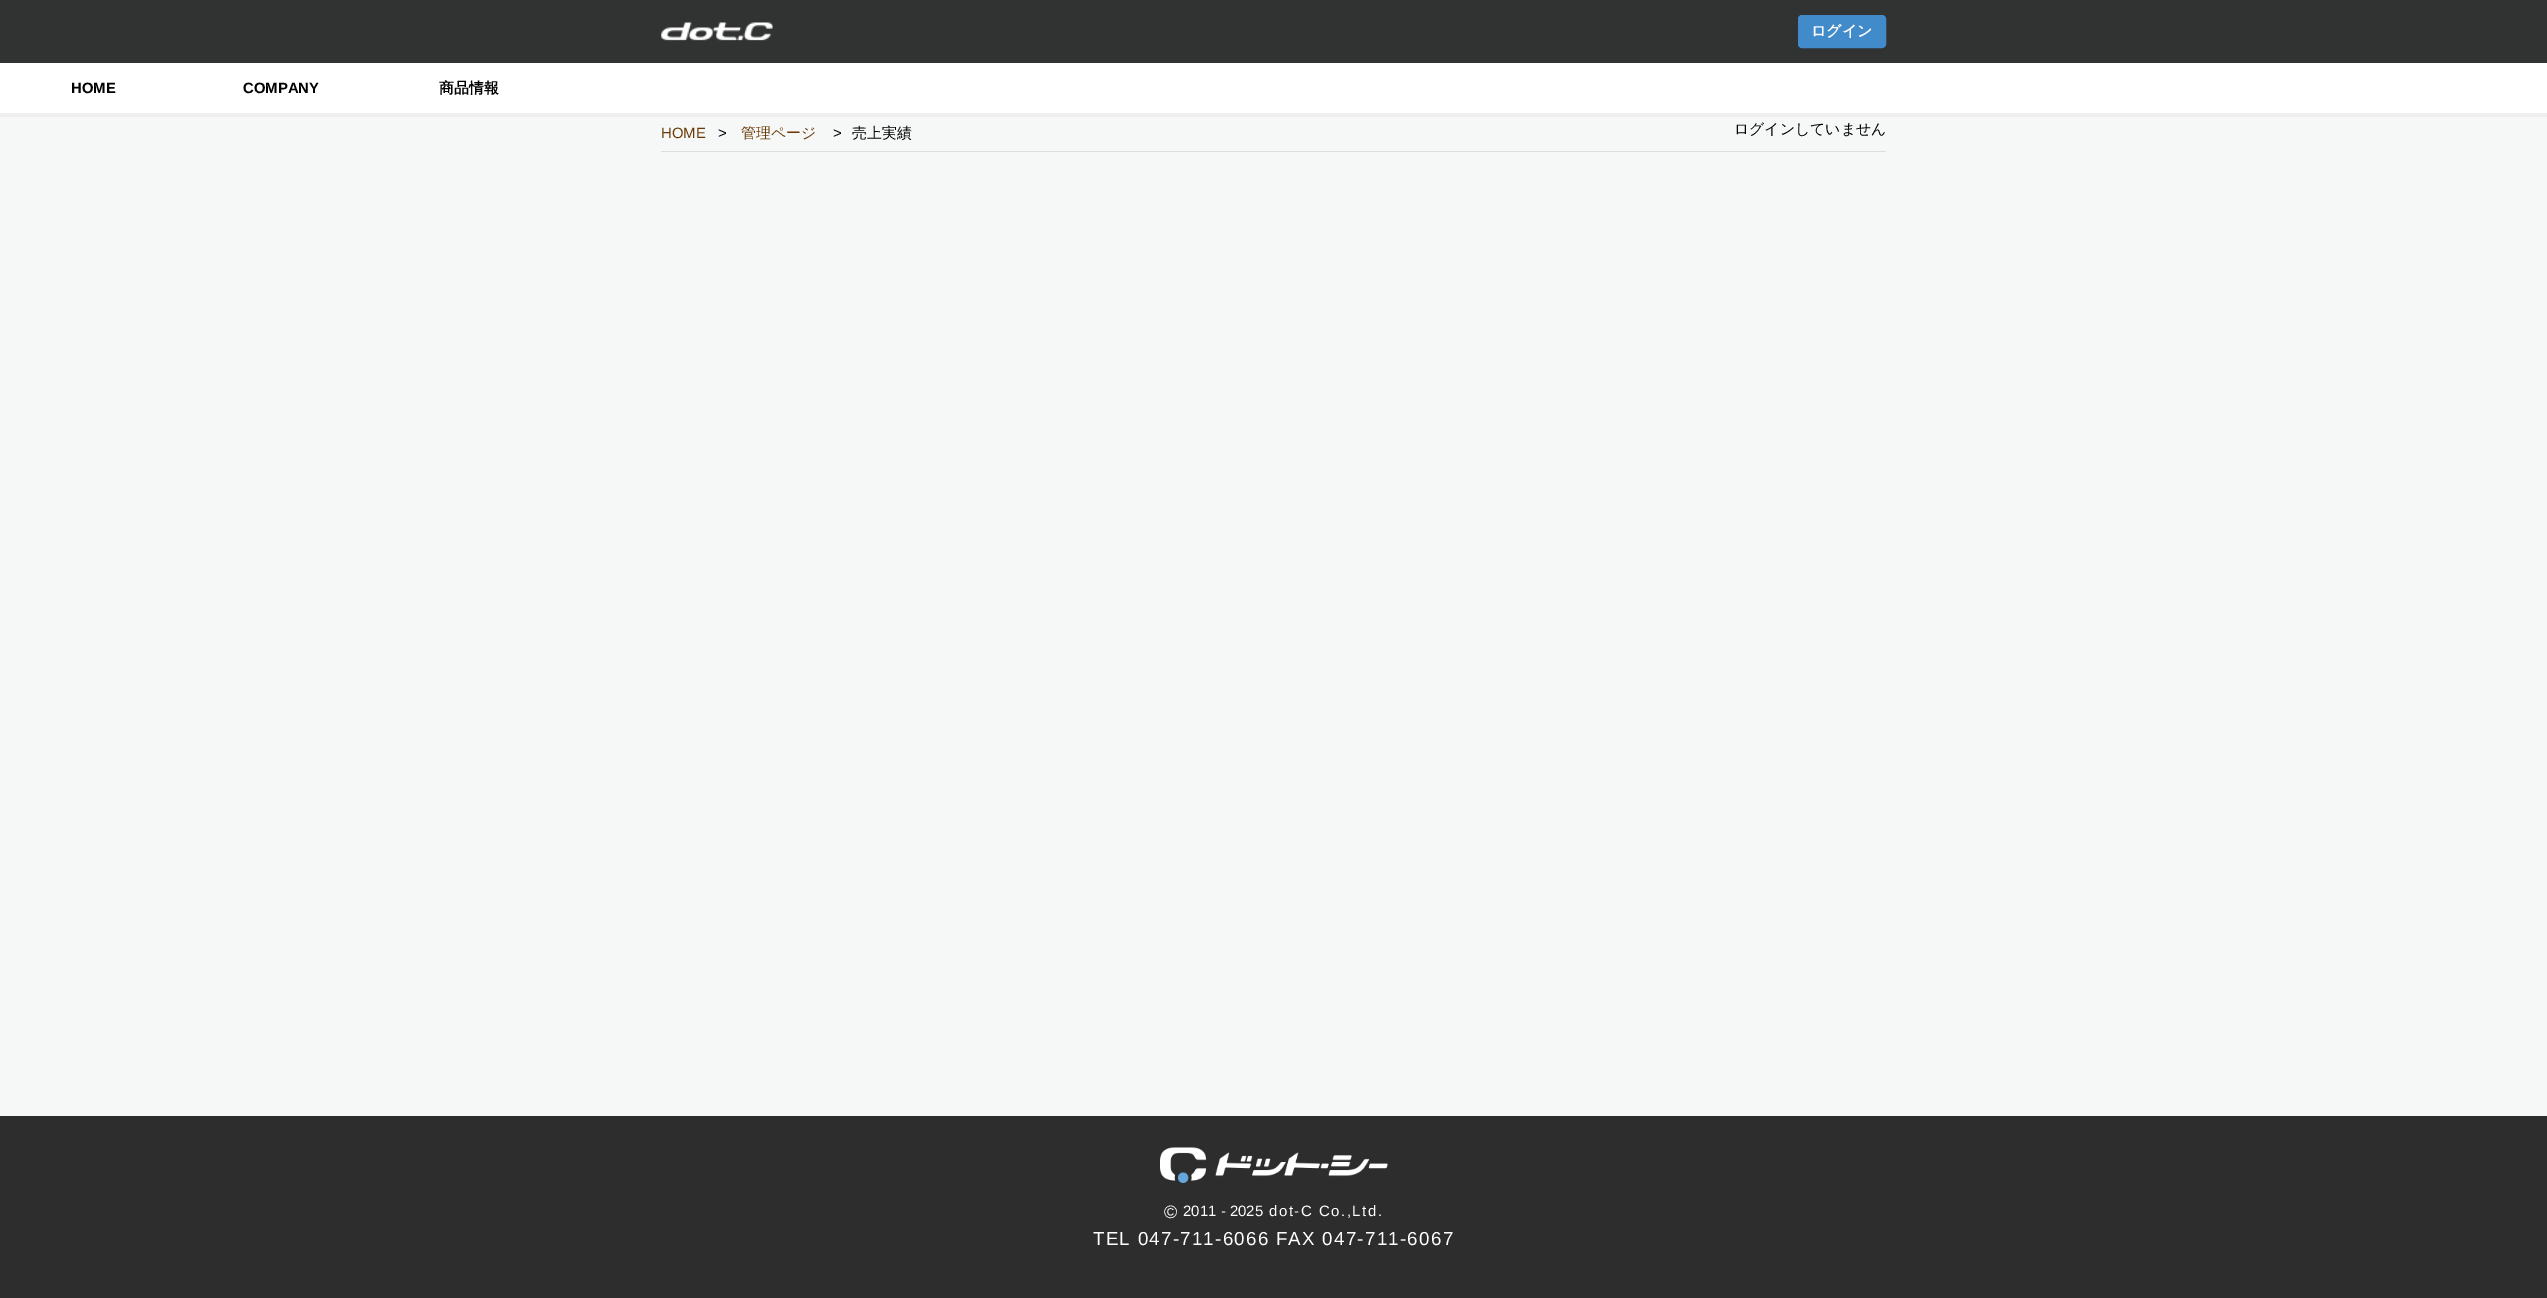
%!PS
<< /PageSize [2547 1298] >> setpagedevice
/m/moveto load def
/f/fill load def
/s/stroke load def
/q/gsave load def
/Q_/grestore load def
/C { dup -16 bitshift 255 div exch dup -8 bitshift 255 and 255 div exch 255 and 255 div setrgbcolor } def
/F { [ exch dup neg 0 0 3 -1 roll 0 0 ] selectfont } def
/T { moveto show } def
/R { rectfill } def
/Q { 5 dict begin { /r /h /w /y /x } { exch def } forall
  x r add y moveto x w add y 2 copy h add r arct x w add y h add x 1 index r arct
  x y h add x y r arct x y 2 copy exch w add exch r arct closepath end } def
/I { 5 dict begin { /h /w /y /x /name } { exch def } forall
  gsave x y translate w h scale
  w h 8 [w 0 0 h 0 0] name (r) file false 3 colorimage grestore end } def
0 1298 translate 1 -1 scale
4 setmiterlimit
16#F6F7F7 C
0 0 2547 1298 R
16#313232 C
0 0 2547 63 R
(1.rgb) 661 22 112 19 I
16#428BCA C
1798.5 15.5 87 32 3.5 Q q f Q_
s
/WenQuanYiZenHei-Bold 15 F
16#FFFFFF C
(ログイン) 1811 36 T
0 63 2547 50 R
16#EEEEEE C
0 113 2547 4 R
/LiberationSans-Bold 14.9 F
16#000000 C
(HOME) 71 93 T
(COMPANY) 243 93 T
/WenQuanYiZenHei-Bold 14.9 F
(商品情報) 439 93 T
16#DCDDDD C
661 151 1225 1 R
/LiberationSans-Regular 14.9 F
16#6A3906 C
(HOME) 661 138 T
16#000000 C
(>) 718 138 T
/WenQuanYiZenHei-Medium 14.9 F
16#6A3906 C
(管理ページ) 741 138 T
/LiberationSans-Regular 14.9 F
16#000000 C
(>) 833 138 T
/WenQuanYiZenHei-Medium 14.9 F
(売上実績) 852 138 T
(ログインしていません) 1734 134 T
16#2D2D2D C
0 1116 2547 182 R
(2.rgb) 1160 1147 228 36 I
/LiberationSans-Regular 18 F
16#FFFFFF C
(©) 1164 1218 T
/LiberationSans-Regular 15 F
(2011 - 2025) 1183 1216 T
1269 1216 m 1.5 0 (dot-C Co.,Ltd.) ashow
/LiberationSans-Regular 18.75 F
1093 1245 m 1.25 0 (TEL 047-711-6066 FAX 047-711-6067) ashow
showpage
